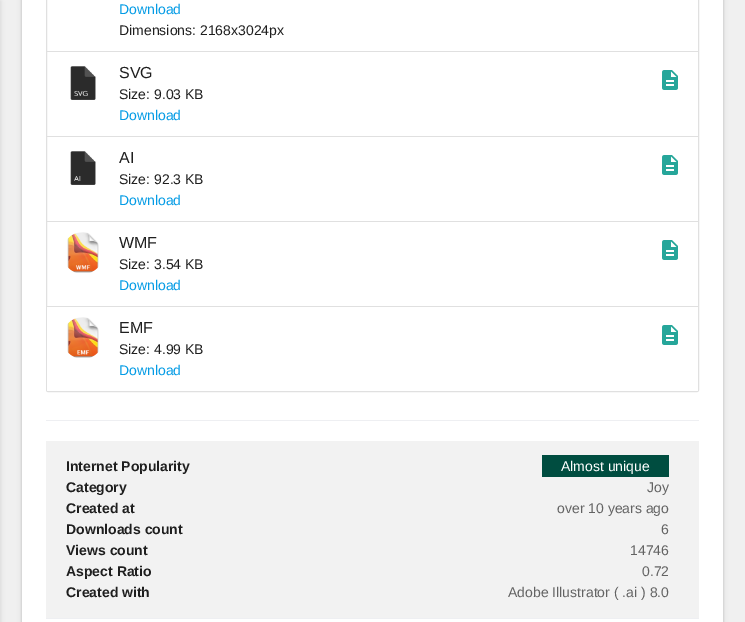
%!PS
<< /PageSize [745 622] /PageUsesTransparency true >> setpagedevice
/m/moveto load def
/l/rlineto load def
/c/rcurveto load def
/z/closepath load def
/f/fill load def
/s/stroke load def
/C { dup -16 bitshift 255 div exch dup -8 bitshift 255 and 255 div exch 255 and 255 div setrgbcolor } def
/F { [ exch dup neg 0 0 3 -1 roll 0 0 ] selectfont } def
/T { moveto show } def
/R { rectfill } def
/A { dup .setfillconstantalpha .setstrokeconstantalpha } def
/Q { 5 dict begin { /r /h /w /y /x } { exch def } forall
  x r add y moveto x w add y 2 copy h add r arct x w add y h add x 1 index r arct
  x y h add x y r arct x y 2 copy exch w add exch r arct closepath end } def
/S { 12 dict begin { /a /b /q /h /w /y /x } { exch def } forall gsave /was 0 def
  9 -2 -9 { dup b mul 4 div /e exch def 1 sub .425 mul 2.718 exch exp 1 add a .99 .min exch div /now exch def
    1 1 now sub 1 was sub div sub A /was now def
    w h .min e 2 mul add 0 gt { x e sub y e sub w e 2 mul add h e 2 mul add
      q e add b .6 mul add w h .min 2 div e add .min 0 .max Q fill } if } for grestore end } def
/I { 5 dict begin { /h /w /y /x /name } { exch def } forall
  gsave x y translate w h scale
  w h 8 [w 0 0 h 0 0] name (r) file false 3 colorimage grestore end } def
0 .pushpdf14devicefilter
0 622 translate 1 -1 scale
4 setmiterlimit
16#F0F0F0 C
0 0 745 622 R
16#000000 C
-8 1 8 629 0 2.5 .12 S
22 -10 701 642 2 2.5 .12 S
22 -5 701 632 2 1 .14 S
16#FFFFFF C
22 0 701 622 R
16#EEEFF2 C
46 420 653 1 R
16#E0E0E0 C
46.5 -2.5 652 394 1.5 Q s
47 51 651 1 R
/LiberationSans-Regular 14 F
16#039BE5 C
(Download) 119 14 T
16#1F1F1F C
(Dimensions: 2168x3024px) 119 35 T
16#E0E0E0 C
47 136 651 1 R
(1.rgb) 70 66 26 34 I
/LiberationSans-Regular 16 F
16#1F1F1F C
(SVG) 119 78 T
(2.rgb) 662 70 16 20 I
/LiberationSans-Regular 14 F
(Size: 9.03 KB) 119 99 T
16#039BE5 C
(Download) 119 120 T
16#E0E0E0 C
47 221 651 1 R
(3.rgb) 70 151 26 34 I
/LiberationSans-Regular 16 F
16#1F1F1F C
(AI) 119 163 T
(2.rgb) 662 155 16 20 I
/LiberationSans-Regular 14 F
(Size: 92.3 KB) 119 184 T
16#039BE5 C
(Download) 119 205 T
16#E0E0E0 C
47 306 651 1 R
(4.rgb) 67 232 32 41 I
/LiberationSans-Regular 16 F
16#1F1F1F C
(WMF) 119 248 T
(2.rgb) 662 240 16 20 I
/LiberationSans-Regular 14 F
(Size: 3.54 KB) 119 269 T
16#039BE5 C
(Download) 119 290 T
16#FFFFFF C
47 307 m 651 0 l 0 83 l 0 .5 -.5 1 -1 1 c -649 0 l -.5 0 -1 -.5 -1 -1 c z f
(5.rgb) 67 317 32 41 I
/LiberationSans-Regular 16 F
16#1F1F1F C
(EMF) 119 333 T
(2.rgb) 662 325 16 20 I
/LiberationSans-Regular 14 F
(Size: 4.99 KB) 119 354 T
16#039BE5 C
(Download) 119 375 T
16#F2F2F2 C
46 441 653 177 R
16#EEEFF2 C
46 618 653 1 R
/LiberationSans-Bold 14 F
16#1F1F1F C
(Internet Popularity) 66 471 T
16#004D40 C
542 455 127 22 R
/LiberationSans-Regular 14 F
16#FFFFFF C
(Almost unique) 561 471 T
/LiberationSans-Bold 14 F
16#1F1F1F C
(Category) 66 492 T
/LiberationSans-Regular 14 F
16#636363 C
(Joy) 647 492 T
/LiberationSans-Bold 14 F
16#1F1F1F C
(Created at) 66 513 T
/LiberationSans-Regular 14 F
16#636363 C
(over 10 years ago) 557 513 T
/LiberationSans-Bold 14 F
16#1F1F1F C
(Downloads count) 66 534 T
/LiberationSans-Regular 14 F
16#636363 C
(6) 661 534 T
/LiberationSans-Bold 14 F
16#1F1F1F C
(Views count) 66 555 T
/LiberationSans-Regular 14 F
16#636363 C
(14746) 630 555 T
/LiberationSans-Bold 14 F
16#1F1F1F C
(Aspect Ratio) 66 576 T
/LiberationSans-Regular 14 F
16#636363 C
(0.72) 642 576 T
/LiberationSans-Bold 14 F
16#1F1F1F C
(Created with) 66 597 T
/LiberationSans-Regular 14 F
16#636363 C
(Adobe Illustrator \( .ai \) 8.0) 508 597 T
.poppdf14devicefilter showpage
